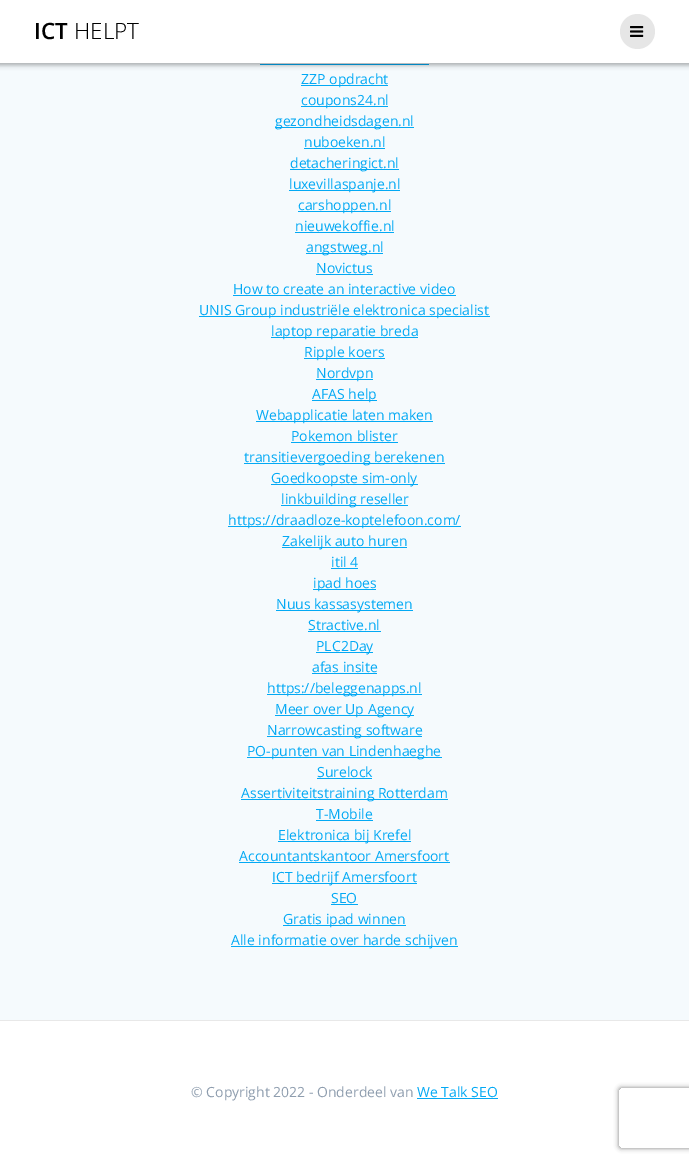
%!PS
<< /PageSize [689 1162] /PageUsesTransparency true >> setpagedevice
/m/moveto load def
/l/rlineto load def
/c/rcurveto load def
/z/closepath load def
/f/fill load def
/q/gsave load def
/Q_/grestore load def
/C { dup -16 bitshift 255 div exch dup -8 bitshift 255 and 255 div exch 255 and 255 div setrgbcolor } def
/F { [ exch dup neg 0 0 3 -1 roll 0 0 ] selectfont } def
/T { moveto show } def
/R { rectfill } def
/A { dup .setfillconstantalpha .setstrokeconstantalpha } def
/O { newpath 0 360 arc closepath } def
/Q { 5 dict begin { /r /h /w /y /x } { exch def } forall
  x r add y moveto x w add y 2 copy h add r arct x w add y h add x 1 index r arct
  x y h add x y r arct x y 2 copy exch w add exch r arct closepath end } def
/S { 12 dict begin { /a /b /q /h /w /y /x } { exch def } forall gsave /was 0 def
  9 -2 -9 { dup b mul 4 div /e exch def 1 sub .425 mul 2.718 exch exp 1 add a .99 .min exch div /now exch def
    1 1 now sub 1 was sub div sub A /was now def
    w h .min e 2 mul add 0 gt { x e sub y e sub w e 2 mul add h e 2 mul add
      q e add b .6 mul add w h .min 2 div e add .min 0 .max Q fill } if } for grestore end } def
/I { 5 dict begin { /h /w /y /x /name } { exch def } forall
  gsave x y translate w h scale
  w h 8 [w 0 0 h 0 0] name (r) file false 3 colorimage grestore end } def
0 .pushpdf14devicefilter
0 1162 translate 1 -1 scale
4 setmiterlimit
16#FFFFFF C
0 0 689 1162 R
16#F5FAFD C
0 63 689 957 R
16#03A9F4 C
260 64 169 1 R
16#000000 C
-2 -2 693 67 0 2.5 .33 S
16#FFFFFF C
0 0 689 63 R
/OpenSans-SemiBold 22.5 F
16#000000 C
(ICT) 34 39 T
/OpenSans-Light 22.5 F
(HELPT) 74 39 T
16#E6E6E6 C
637.5 31.5 17.5 O f
(1.rgb) 630 26 14 11 I
16#03A9F4 C
301 85 87 1 R
/OpenSans-Regular 14 F
(ZZP opdracht) 301 84 T
301 106 87 1 R
(coupons24.nl) 301 105 T
275 127 139 1 R
(gezondheidsdagen.nl) 275 126 T
(nuboeken.nl) 304 147 T
304 148 81 1 R
290 169 109 1 R
(detacheringict.nl) 290 168 T
289 190 111 1 R
(luxevillaspanje.nl) 289 189 T
298 211 93 1 R
(carshoppen.nl) 298 210 T
(nieuwekoffie.nl) 295 231 T
295 232 99 1 R
306 253 77 1 R
(angstweg.nl) 306 252 T
(Novictus) 316 273 T
316 274 57 1 R
(How to create an interactive video) 233 294 T
233 295 223 1 R
199 316 291 1 R
(UNIS Group industriële elektronica specialist) 199 315 T
271 337 147 1 R
(laptop reparatie breda) 271 336 T
304 358 81 1 R
(Ripple koers) 304 357 T
316 379 57 1 R
(Nordvpn) 316 378 T
312 400 65 1 R
(AFAS help) 312 399 T
256 421 177 1 R
(Webapplicatie laten maken) 256 420 T
(Pokemon blister) 291 441 T
291 442 107 1 R
244 463 201 1 R
(transitievergoeding berekenen) 244 462 T
271 484 147 1 R
(Goedkoopste sim-only) 271 483 T
281 505 127 1 R
(linkbuilding reseller) 281 504 T
228 526 233 1 R
(https://draadloze-koptelefoon.com/) 228 525 T
282 547 125 1 R
(Zakelijk auto huren) 282 546 T
(itil 4) 331 567 T
331 568 27 1 R
313 589 63 1 R
(ipad hoes) 313 588 T
276 610 137 1 R
(Nuus kassasystemen) 276 609 T
(Stractive.nl) 308 630 T
308 631 73 1 R
316 652 57 1 R
(PLC2Day) 316 651 T
(afas insite) 312 672 T
312 673 65 1 R
267 694 155 1 R
(https://beleggenapps.nl) 267 693 T
275 715 139 1 R
(Meer over Up Agency) 275 714 T
267 736 155 1 R
(Narrowcasting software) 267 735 T
247 757 195 1 R
(PO-punten van Lindenhaeghe) 247 756 T
(Surelock) 317 777 T
317 778 55 1 R
241 799 207 1 R
(Assertiviteitstraining Rotterdam) 241 798 T
(T-Mobile) 316 819 T
316 820 57 1 R
278 841 133 1 R
(Elektronica bij Krefel) 278 840 T
(Accountantskantoor Amersfoort) 239 861 T
239 862 211 1 R
272 883 145 1 R
(ICT bedrijf Amersfoort) 272 882 T
(SEO) 331 903 T
331 904 27 1 R
283 925 123 1 R
(Gratis ipad winnen) 283 924 T
231 946 227 1 R
(Alle informatie over harde schijven) 231 945 T
16#E8E8E8 C
0 1020 689 1 R
16#8E9DAE C
(© Copyright 2022 - Onderdeel van) 191 1097 T
16#03A9F4 C
(We Talk SEO) 417 1097 T
417 1098 81 1 R
q
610 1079 m 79 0 l 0 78 l -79 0 l z 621 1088 m 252 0 l 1 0 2 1 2 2 c 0 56 l 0 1 -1 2 -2 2 c -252 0 l -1 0 -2 -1 -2 -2 c 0 -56 l 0 -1 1 -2 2 -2 c z eoclip newpath
16#808080 C
619 1088 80 60 2 2.5 1 S
Q_
.poppdf14devicefilter showpage
